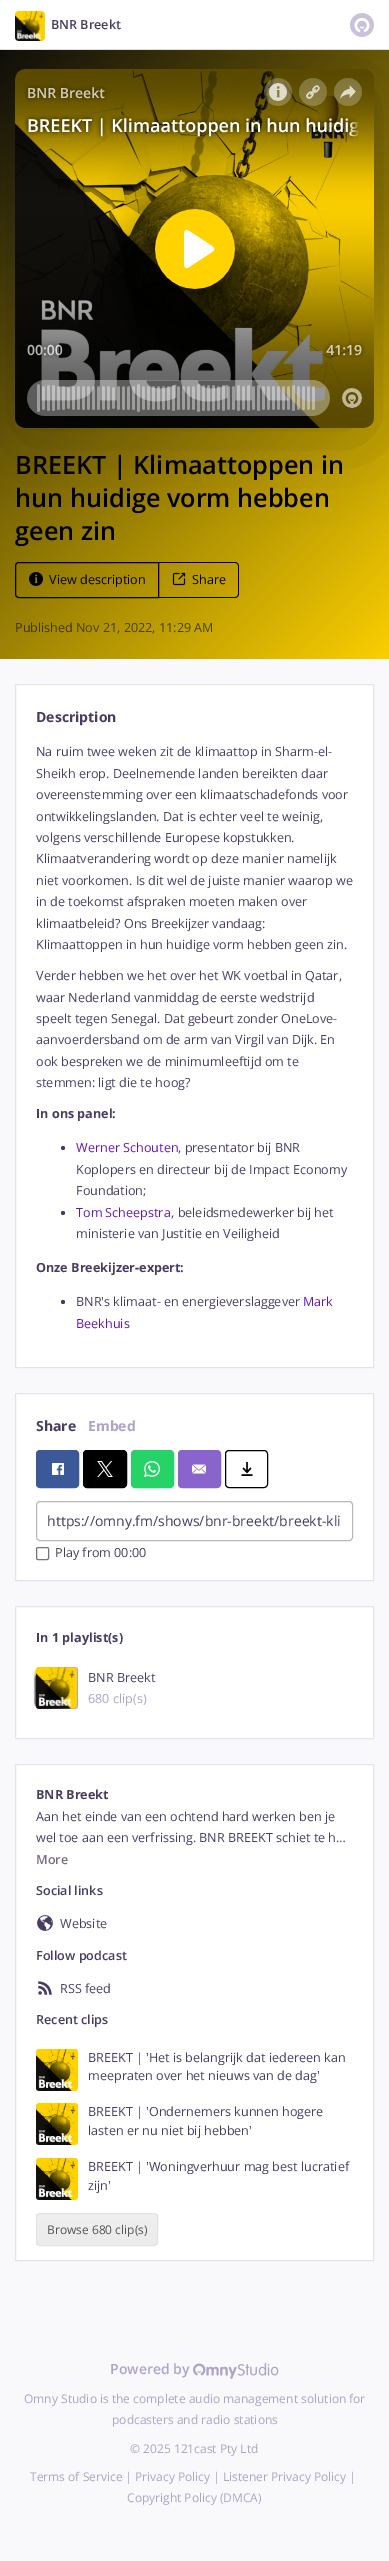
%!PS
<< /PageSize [389 2561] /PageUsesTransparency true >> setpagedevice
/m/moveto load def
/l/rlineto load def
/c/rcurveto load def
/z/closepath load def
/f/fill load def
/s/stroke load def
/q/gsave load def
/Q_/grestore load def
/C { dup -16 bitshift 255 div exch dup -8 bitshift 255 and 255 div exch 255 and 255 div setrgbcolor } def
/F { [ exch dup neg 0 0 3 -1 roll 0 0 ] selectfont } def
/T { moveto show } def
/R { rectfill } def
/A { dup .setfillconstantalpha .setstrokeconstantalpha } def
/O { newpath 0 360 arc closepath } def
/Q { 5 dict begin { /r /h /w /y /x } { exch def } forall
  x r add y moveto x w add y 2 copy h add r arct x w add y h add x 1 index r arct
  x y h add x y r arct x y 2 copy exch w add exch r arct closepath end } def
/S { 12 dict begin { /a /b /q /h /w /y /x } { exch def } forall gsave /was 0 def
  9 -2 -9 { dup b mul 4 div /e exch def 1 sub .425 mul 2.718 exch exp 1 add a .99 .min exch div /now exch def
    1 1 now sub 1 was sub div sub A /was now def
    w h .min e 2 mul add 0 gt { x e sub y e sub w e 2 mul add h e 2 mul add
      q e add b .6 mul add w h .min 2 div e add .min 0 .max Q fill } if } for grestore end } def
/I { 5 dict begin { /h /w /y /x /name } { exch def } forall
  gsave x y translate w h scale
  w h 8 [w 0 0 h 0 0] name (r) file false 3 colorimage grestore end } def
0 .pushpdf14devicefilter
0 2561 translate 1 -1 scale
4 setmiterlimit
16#F9F8FB C
0 0 389 2561 R
16#FFFFFF C
0 0 389 49 R
16#DDDDDD C
0 49 389 1 R
(1.rgb) 15 11 30 30 I
/OpenSans-SemiBold 12.6 F
16#483C63 C
(BNR Breekt) 51 29 T
(2.rgb) 350 13 24 24 I
q 0 50 m 389 0 l 0 609 l -389 0 l z clip newpath
<< /ShadingType 2 /ColorSpace /DeviceRGB /Coords [-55 105 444 604] /Extend [true true] /Function << /FunctionType 2 /Domain [0 1] /C0 [.059 .055 .039] /C1 [.984 .812 .004] /N 1 >> >> shfill Q_
q
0 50 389 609 rectclip
16#000000 C
15 82 359 359 10 38 .2 S
Q_
0.2 A
16#000000 C
15 69 359 359 10 Q f
1 A
(3.rgb) 15 69 359 359 I
/OpenSans-SemiBold 25.25 F
(BREEKT | Klimaattoppen in) 15 474 T
(hun huidige vorm hebben) 15 507 T
(geen zin) 15 540 T
19 562.5 m 139.5 0 l 0 35 l -139.5 0 l -2 0 -3.5 -1.5 -3.5 -3.5 c 0 -28 l 0 -2 1.5 -3.5 3.5 -3.5 c z s
(4.rgb) 29 572 14 14 I
/OpenSans-Regular 12.6 F
(View description) 49 584 T
159 562 m 76 0 l 2 0 4 2 4 4 c 0 28 l 0 2 -2 4 -4 4 c -76 0 l z 159 563 m 76 0 l 2 0 3 1 3 3 c 0 28 l 0 2 -1 3 -3 3 c -76 0 l z eofill
(5.rgb) 172 572 14 14 I
(Share) 192 584 T
16#413602 C
(Published) 15 632 T
16#4A3E01 C
(Nov 21, 2022, 11:29 AM) 76 632 T
16#FFFFFF C
15.5 684.5 m 358 0 l 0 683 l -358 0 l z q f Q_
16#E6E2EE C
s
/OpenSans-Bold 14 F
16#483C63 C
(Description) 36 722 T
/OpenSans-Regular 12.6 F
(Na ruim twee weken zit de klimaattop in Sharm-el-) 36 756 T
(Sheikh erop. Deelnemende landen bereikten daar) 36 778 T
(overeenstemming over een klimaatschadefonds voor) 36 799 T
(ontwikkelingslanden. Dat is echter veel te weinig,) 36 821 T
(volgens verschillende Europese kopstukken.) 36 842 T
(Klimaatverandering wordt op deze manier namelijk) 36 863 T
(niet voorkomen. Is dit wel de juiste manier waarop we) 36 885 T
(in de toekomst afspraken moeten maken over) 36 906 T
(klimaatbeleid? Ons Breekijzer vandaag:) 36 928 T
(Klimaattoppen in hun huidige vorm hebben geen zin.) 36 949 T
(Verder hebben we het over het WK voetbal in Qatar,) 36 980 T
(waar Nederland vanmiddag de eerste wedstrijd) 36 1002 T
(speelt tegen Senegal. Dat gebeurt zonder OneLove-) 36 1023 T
(aanvoerdersband om de arm van Virgil van Dijk. En) 36 1044 T
(ook bespreken we de minimumleeftijd om te) 36 1066 T
(stemmen: ligt die te hoog?) 36 1087 T
/OpenSans-Bold 12.6 F
(In ons panel:) 36 1118 T
63 1148 2 O f
/OpenSans-Regular 12.6 F
16#6313BC C
(Werner Schouten) 76 1152 T
16#483C63 C
(, presentator bij BNR) 178 1152 T
(Koplopers en directeur bij de Impact Economy) 76 1174 T
(Foundation;) 76 1195 T
63 1213 2 O f
16#6313BC C
(Tom Scheepstra) 76 1217 T
16#483C63 C
(, beleidsmedewerker bij het) 171 1217 T
(ministerie van Justitie en Veiligheid) 76 1238 T
/OpenSans-Bold 12.6 F
(Onze Breekijzer-expert:) 36 1272 T
63 1302 2 O f
/OpenSans-Regular 12.6 F
(BNR's klimaat- en energieverslaggever) 76 1306 T
16#6313BC C
(Mark) 303 1306 T
(Beekhuis) 76 1328 T
16#FFFFFF C
15.5 1393.5 m 358 0 l 0 187 l -358 0 l z q f Q_
16#E6E2EE C
s
/OpenSans-Bold 14 F
16#483C63 C
(Share) 36 1431 T
16#AEA3C8 C
(Embed) 88 1431 T
16#3B5998 C
36.5 1450.5 42 37 3.5 Q q f Q_
s
(6.rgb) 52 1463 12 12 I
16#000000 C
83.5 1450.5 43 37 3.5 Q q f Q_
s
(7.rgb) 97 1461 16 16 I
16#25D366 C
131.5 1450.5 42 37 3.5 Q q f Q_
s
(8.rgb) 144 1461 16 16 I
16#8964CC C
178.5 1450.5 42 37 3.5 Q q f Q_
s
(9.rgb) 192 1464 14 10 I
16#000000 C
225.5 1450.5 42 37 3.5 Q s
(10.rgb) 241 1462 12 14 I
16#B9B9B9 C
36.5 1501.5 316 39 3.5 Q s
/OpenSans-Regular 14 F
16#483C63 C
(https://omny.fm/shows/bnr-breekt/breekt-kli) 47 1526 T
16#767676 C
36.5 1547.5 12 12 1.5 Q s
/OpenSans-Regular 12.6 F
16#483C63 C
(Play from 00:00) 55 1557 T
16#FFFFFF C
15.5 1606.5 m 358 0 l 0 132 l -358 0 l z q f Q_
16#E6E2EE C
s
/OpenSans-Bold 12.6 F
16#483C63 C
(In 1 playlist\(s\)) 36 1642 T
16#EFECF4 C
34 1671 33 34 2.5 Q f
(13.rgb) 33 1671 3 34 I
0.5 A
16#AFA1CA C
35 1669 37 38 2.5 Q f
1 A
(12.rgb) 34 1669 3 38 I
36 1667 42 42 3 Q f
(11.rgb) 36 1667 41 42 I
/OpenSans-Regular 12.6 F
16#483C63 C
(BNR Breekt) 88 1682 T
16#AEA3C8 C
(680 clip\(s\)) 88 1703 T
16#FFFFFF C
15.5 1764.5 m 358 0 l 0 496 l -358 0 l z q f Q_
16#E6E2EE C
s
/OpenSans-Bold 12.6 F
16#483C63 C
(BNR Breekt) 36 1799 T
/OpenSans-Regular 12.6 F
(Aan het einde van een ochtend hard werken ben je) 36 1821 T
(wel toe aan een verfrissing. BNR BREEKT schiet te h…) 36 1842 T
/OpenSans-SemiBold 12.6 F
16#796E87 C
(More) 36 1864 T
16#483C63 C
(Social links) 36 1895 T
(14.rgb) 37 1915 16 16 I
/OpenSans-Regular 12.6 F
(Website) 60 1928 T
/OpenSans-SemiBold 12.6 F
(Follow podcast) 36 1960 T
(15.rgb) 38 1981 14 14 I
/OpenSans-Regular 12.6 F
(RSS feed) 60 1993 T
/OpenSans-SemiBold 12.6 F
(Recent clips) 36 2024 T
(16.rgb) 36 2049 42 42 I
/OpenSans-Regular 12.6 F
(BREEKT | 'Het is belangrijk dat iedereen kan) 88 2062 T
(meepraten over het nieuws van de dag') 88 2080 T
(16.rgb) 36 2103 42 42 I
(BREEKT | 'Ondernemers kunnen hogere) 88 2116 T
(lasten er nu niet bij hebben') 88 2135 T
(16.rgb) 36 2158 42 42 I
(BREEKT | 'Woningverhuur mag best lucratief) 88 2171 T
(zijn') 88 2190 T
q
36 2213 122 33 4 Q clip newpath
q 36 2214 m 122 0 l 0 31 l -122 0 l z clip newpath
<< /ShadingType 2 /ColorSpace /DeviceRGB /Coords [97 2214 97 2245] /Extend [true true] /Function << /FunctionType 2 /Domain [0 1] /C0 [.941 .941 .941] /C1 [.922 .922 .922] /N 1 >> >> shfill Q_
Q_
16#E3E3E3 C
36.5 2213.5 121 32 3.5 Q s
/OpenSans-Regular 12 F
16#555555 C
(Browse 680 clip\(s\)) 47 2234 T
/OpenSans-SemiBold 14 F
16#AEA3C8 C
(Powered by) 110 2374 T
(17.rgb) 193 2363 86 16 I
/OpenSans-Regular 12 F
(Omny Studio is the complete audio management solution for) 24 2403 T
(podcasters and radio stations) 112 2424 T
(© 2025 121cast Pty Ltd) 130 2453 T
(Terms of Service | Privacy Policy | Listener Privacy Policy |) 30 2481 T
(Copyright Policy \(DMCA\)) 127 2502 T
.poppdf14devicefilter showpage
